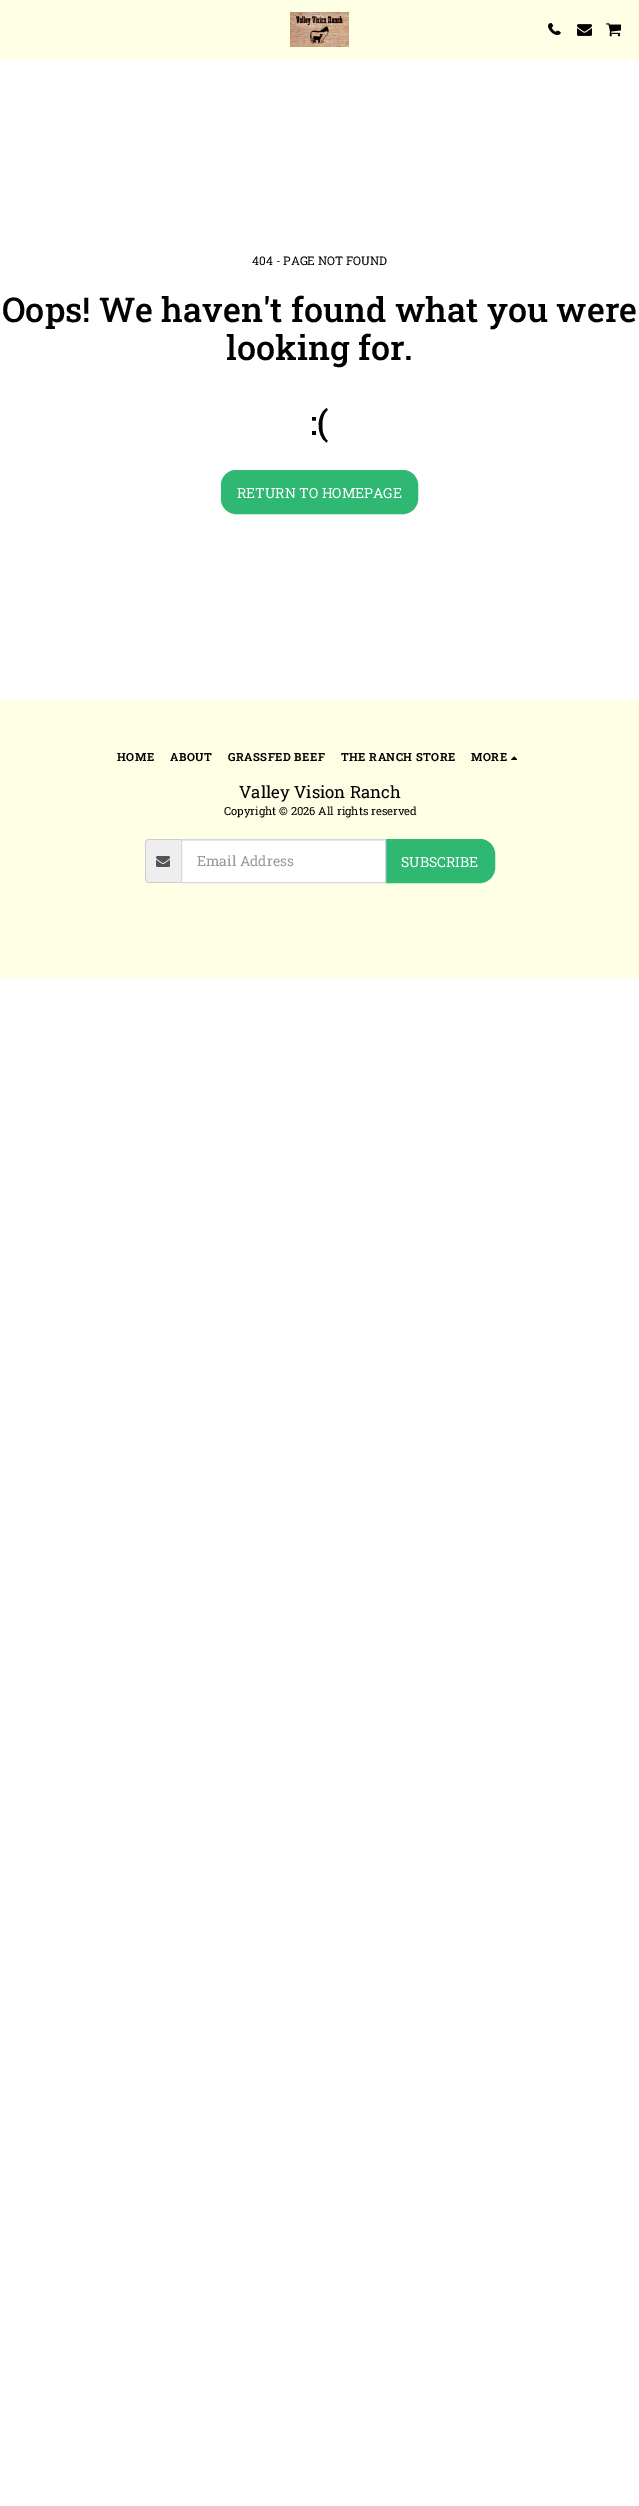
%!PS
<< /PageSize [639 2506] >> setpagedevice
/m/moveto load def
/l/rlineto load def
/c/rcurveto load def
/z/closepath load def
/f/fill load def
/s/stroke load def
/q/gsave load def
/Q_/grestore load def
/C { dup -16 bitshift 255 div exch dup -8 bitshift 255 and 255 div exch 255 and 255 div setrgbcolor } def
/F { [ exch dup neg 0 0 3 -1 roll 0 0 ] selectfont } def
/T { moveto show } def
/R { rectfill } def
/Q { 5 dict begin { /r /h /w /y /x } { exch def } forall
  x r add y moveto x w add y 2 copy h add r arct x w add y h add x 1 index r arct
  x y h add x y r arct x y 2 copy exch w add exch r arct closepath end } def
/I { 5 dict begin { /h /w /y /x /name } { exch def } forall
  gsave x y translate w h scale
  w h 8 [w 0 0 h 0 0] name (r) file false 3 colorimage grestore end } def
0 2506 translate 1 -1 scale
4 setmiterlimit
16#FFFFFF C
0 0 639 2506 R
16#FEFFE4 C
0 0 639 60 R
(1.rgb) 290 12 59 35 I
(2.rgb) 549 23 12 12 I
(3.rgb) 548 23 12 12 I
(4.rgb) 577 24 15 12 I
(5.rgb) 606 23 15 14 I
/RobotoSlab-Regular 11.9 F
16#000000 C
(404 - PAGE NOT FOUND) 252 265 T
/RobotoSlab-Medium 34.2 F
(Oops! We haven't found what you were) 2 322 T
(looking for.) 226 360 T
(:\() 310 435 T
16#2EB872 C
221.5 470.5 196 43 14.5 Q q f Q_
s
/RobotoSlab-Regular 14 F
16#FFFFFF C
(RETURN TO HOMEPAGE) 237 498 T
16#FEFFE4 C
0 700 639 278 R
/RobotoSlab-Bold 11.25 F
16#000000 C
117 761 m .5 0 (HOME) ashow
170 761 m .5 0 (ABOUT) ashow
228 761 m .5 0 (GRASSFED BEEF) ashow
341 761 m .5 0 (THE RANCH STORE) ashow
471 761 m .5 0 (MORE) ashow
(6.rgb) 511 756 6 4 I
/RobotoSlab-Regular 16.75 F
(Valley Vision Ranch) 239 798 T
/RobotoSlab-Regular 11.25 F
(Copyright © 2026 All rights reserved) 224 815 T
16#EEEEEE C
149 840 m 32 0 l 0 42 l -32 0 l -1.5 0 -3 -1.5 -3 -3 c 0 -36 l 0 -1.5 1.5 -3 3 -3 c z f
16#CCCCCC C
149 839 m 32 0 l 0 44 l -32 0 l -2 0 -4 -2 -4 -4 c 0 -36 l 0 -2 2 -4 4 -4 c z 149 840 m 32 0 l 0 42 l -32 0 l -2 0 -3 -1 -3 -3 c 0 -36 l 0 -2 1 -3 3 -3 c z eofill
(7.rgb) 156 856 14 11 I
16#FFFFFF C
182 841 203 41 R
16#ECECEC C
182 840 203 1 R
16#2EB872 C
385.5 839.5 m 94.5 0 l 8 0 14.5 6.5 14.5 14.5 c 0 14 l 0 8 -6.5 14.5 -14.5 14.5 c -94.5 0 l z q f Q_
s
16#D4D7E5 C
181.5 839.5 204 43 rectstroke
/RobotoSlab-Regular 14 F
16#999999 C
(Email Address) 197 866 T
16#FFFFFF C
(SUBSCRIBE) 401 867 T
showpage
